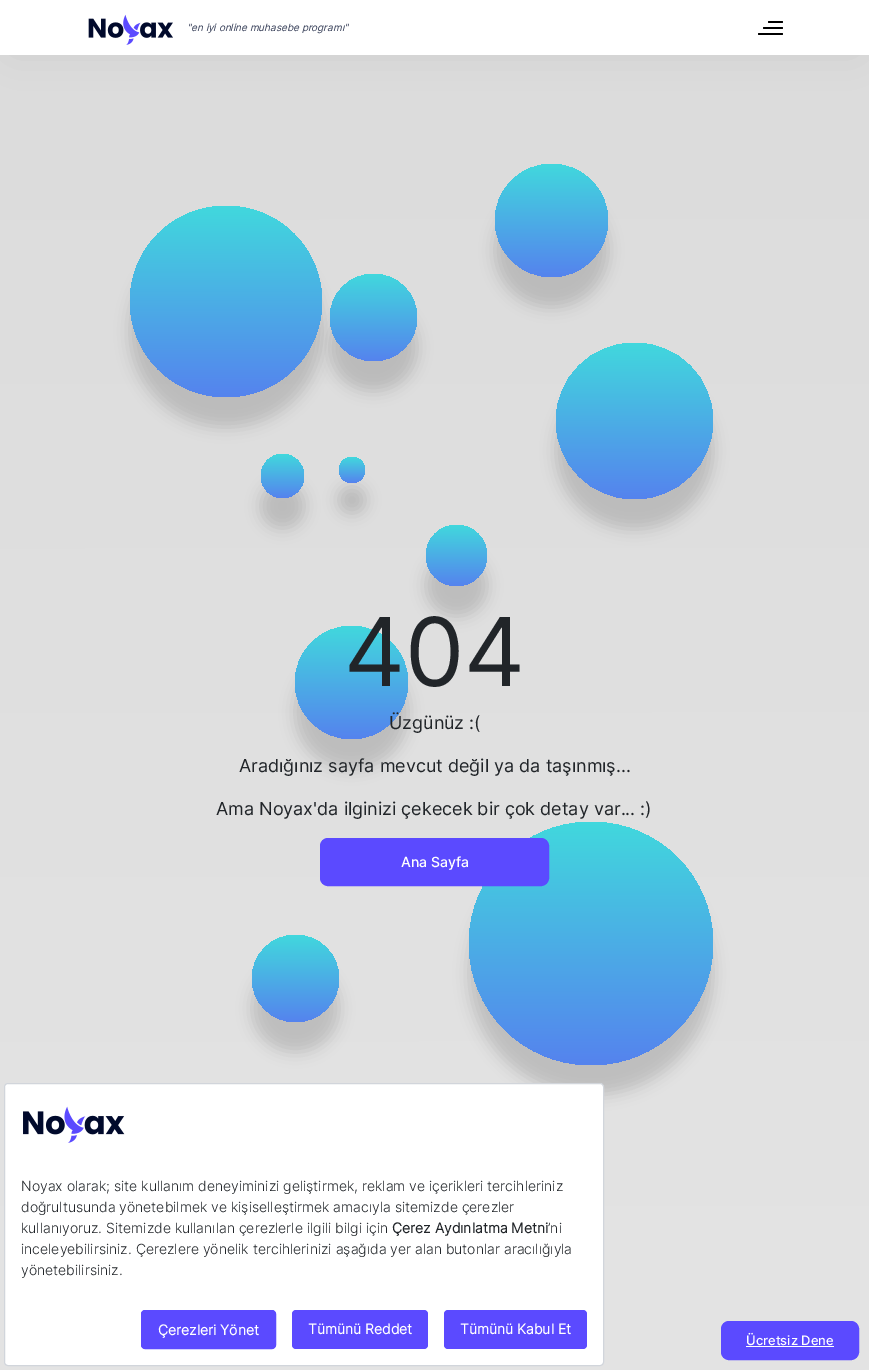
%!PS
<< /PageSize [869 1370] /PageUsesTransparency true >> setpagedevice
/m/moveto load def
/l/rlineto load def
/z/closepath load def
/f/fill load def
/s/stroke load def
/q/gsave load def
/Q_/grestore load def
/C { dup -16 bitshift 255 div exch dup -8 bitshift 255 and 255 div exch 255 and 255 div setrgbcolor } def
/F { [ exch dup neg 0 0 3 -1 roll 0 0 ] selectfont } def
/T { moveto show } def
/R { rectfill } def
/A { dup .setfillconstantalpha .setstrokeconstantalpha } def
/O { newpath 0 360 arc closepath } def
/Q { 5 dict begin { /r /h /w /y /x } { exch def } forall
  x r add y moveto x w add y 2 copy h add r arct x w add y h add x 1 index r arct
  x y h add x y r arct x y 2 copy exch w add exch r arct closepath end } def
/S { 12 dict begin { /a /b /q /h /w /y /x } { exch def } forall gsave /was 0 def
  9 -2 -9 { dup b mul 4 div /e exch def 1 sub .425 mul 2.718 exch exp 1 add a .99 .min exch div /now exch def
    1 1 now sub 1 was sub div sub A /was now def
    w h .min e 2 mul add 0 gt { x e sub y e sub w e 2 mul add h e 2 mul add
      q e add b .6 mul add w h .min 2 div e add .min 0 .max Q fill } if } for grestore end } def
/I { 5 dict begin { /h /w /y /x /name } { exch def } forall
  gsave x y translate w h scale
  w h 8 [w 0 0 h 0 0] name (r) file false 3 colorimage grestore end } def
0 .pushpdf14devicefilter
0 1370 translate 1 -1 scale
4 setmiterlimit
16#FFFFFF C
0 0 869 1370 R
q 0 55 m 869 0 l 0 1315 l -869 0 l z clip newpath
<< /ShadingType 2 /ColorSpace /DeviceRGB /Coords [434 55 435 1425] /Extend [true true] /Function << /FunctionType 2 /Domain [0 1] /C0 [.863 .863 .863] /C1 [.894 .894 .894] /N 1 >> >> shfill Q_
16#000000 C
14 19 841 27 0 20 .1 S
16#FFFFFF C
0 0 869 55 R
(1.rgb) 88 14 85 31 I
/Inter-Italic 10 F
16#39415A C
("en iyi online muhasebe programı") 187 31 T
16#000000 C
768 21 15 2 1 Q f
763 27 20 2 1 Q f
758 33 25 2 1 Q f
130 236 192 191 95.5 7.5 .15 S
q 130 206 192 191 95.5 Q clip newpath
<< /ShadingType 2 /ColorSpace /DeviceRGB /Coords [226 206 226 397] /Extend [true true] /Function << /FunctionType 2 /Domain [0 1] /C0 [.255 .847 .867] /C1 [.333 .514 .933] /N 1 >> >> shfill Q_
295 656 113 113 56.5 7.5 .15 S
q 351.5 682.5 56.5 O clip newpath
<< /ShadingType 2 /ColorSpace /DeviceRGB /Coords [352 626 352 739] /Extend [true true] /Function << /FunctionType 2 /Domain [0 1] /C0 [.255 .847 .867] /C1 [.333 .514 .933] /N 1 >> >> shfill Q_
495 194 113 113 56.5 7.5 .15 S
q 551.5 220.5 56.5 O clip newpath
<< /ShadingType 2 /ColorSpace /DeviceRGB /Coords [552 164 552 277] /Extend [true true] /Function << /FunctionType 2 /Domain [0 1] /C0 [.255 .847 .867] /C1 [.333 .514 .933] /N 1 >> >> shfill Q_
339 487 26 26 13 7.5 .15 S
q 352 470 13 O clip newpath
<< /ShadingType 2 /ColorSpace /DeviceRGB /Coords [352 457 352 483] /Extend [true true] /Function << /FunctionType 2 /Domain [0 1] /C0 [.255 .847 .867] /C1 [.333 .514 .933] /N 1 >> >> shfill Q_
330 304 87 87 43.5 7.5 .15 S
q 373.5 317.5 43.5 O clip newpath
<< /ShadingType 2 /ColorSpace /DeviceRGB /Coords [374 274 374 361] /Extend [true true] /Function << /FunctionType 2 /Domain [0 1] /C0 [.255 .847 .867] /C1 [.333 .514 .933] /N 1 >> >> shfill Q_
261 484 43 44 21.5 7.5 .15 S
q 261 454 43 44 21.5 Q clip newpath
<< /ShadingType 2 /ColorSpace /DeviceRGB /Coords [283 454 283 498] /Extend [true true] /Function << /FunctionType 2 /Domain [0 1] /C0 [.255 .847 .867] /C1 [.333 .514 .933] /N 1 >> >> shfill Q_
556 373 157 156 78 7.5 .15 S
q 556 343 157 156 78 Q clip newpath
<< /ShadingType 2 /ColorSpace /DeviceRGB /Coords [635 343 635 499] /Extend [true true] /Function << /FunctionType 2 /Domain [0 1] /C0 [.255 .847 .867] /C1 [.333 .514 .933] /N 1 >> >> shfill Q_
426 555 61 61 30.5 7.5 .15 S
q 456.5 555.5 30.5 O clip newpath
<< /ShadingType 2 /ColorSpace /DeviceRGB /Coords [457 525 457 586] /Extend [true true] /Function << /FunctionType 2 /Domain [0 1] /C0 [.255 .847 .867] /C1 [.333 .514 .933] /N 1 >> >> shfill Q_
/Inter-Regular 95 F
16#212529 C
(404) 344 686 T
/Inter-Regular 18 F
(Üzgünüz :\() 389 729 T
(Aradığınız sayfa mevcut değil ya da taşınmış...) 239 772 T
(Ama Noyax'da ilginizi çekecek bir çok detay var... :\)) 216 815 T
16#000000 C
469 852 244 243 121.5 7.5 .15 S
q 469 822 244 243 121.5 Q clip newpath
<< /ShadingType 2 /ColorSpace /DeviceRGB /Coords [591 822 591 1065] /Extend [true true] /Function << /FunctionType 2 /Domain [0 1] /C0 [.255 .847 .867] /C1 [.333 .514 .933] /N 1 >> >> shfill Q_
16#5B4AFF C
320.5 838.5 228 47 7.5 Q q f Q_
s
/Inter-Medium 14 F
16#FFFFFF C
(Ana Sayfa) 401 867 T
16#000000 C
252 965 87 87 43.5 7.5 .15 S
q 295.5 978.5 43.5 O clip newpath
<< /ShadingType 2 /ColorSpace /DeviceRGB /Coords [296 935 296 1022] /Extend [true true] /Function << /FunctionType 2 /Domain [0 1] /C0 [.255 .847 .867] /C1 [.333 .514 .933] /N 1 >> >> shfill Q_
16#FFFFFF C
4.5 1083.5 599 282 3.5 Q q f Q_
16#D1D5DB C
s
(2.rgb) 23 1106 102 37 I
/Inter-Light 14 F
16#212529 C
(Noyax olarak; site kullanım deneyiminizi geliştirmek, reklam ve içerikleri tercihleriniz) 21 1191 T
(doğrultusunda yönetebilmek ve kişiselleştirmek amacıyla sitemizde çerezler) 21 1212 T
(kullanıyoruz. Sitemizde kullanılan çerezlerle ilgili bilgi için) 21 1233 T
/Inter-Bold 14 F
(Çerez Aydınlatma Metni) 392 1233 T
/Inter-Light 14 F
(’ni) 548 1233 T
(inceleyebilirsiniz. Çerezlere yönelik tercihlerinizi aşağıda yer alan butonlar aracılığıyla) 21 1254 T
(yönetebilirsiniz.) 21 1275 T
16#5B4AFF C
141.5 1310.5 134 38 3.5 Q q f Q_
s
/Inter-Bold 14 F
16#FFFFFF C
(Çerezleri Yönet) 158 1335 T
16#5B4AFF C
292 1310 136 39 4 Q f
16#FFFFFF C
(Tümünü Reddet) 308 1334 T
16#5B4AFF C
444 1310 143 39 4 Q f
16#FFFFFF C
(Tümünü Kabul Et) 460 1334 T
16#5B4AFF C
721.5 1321.5 137 38 7.5 Q q f Q_
s
/Inter-Medium 13 F
16#FFFFFF C
(Ücretsiz Dene) 746 1345 T
746 1346 88 1 R
.poppdf14devicefilter showpage
